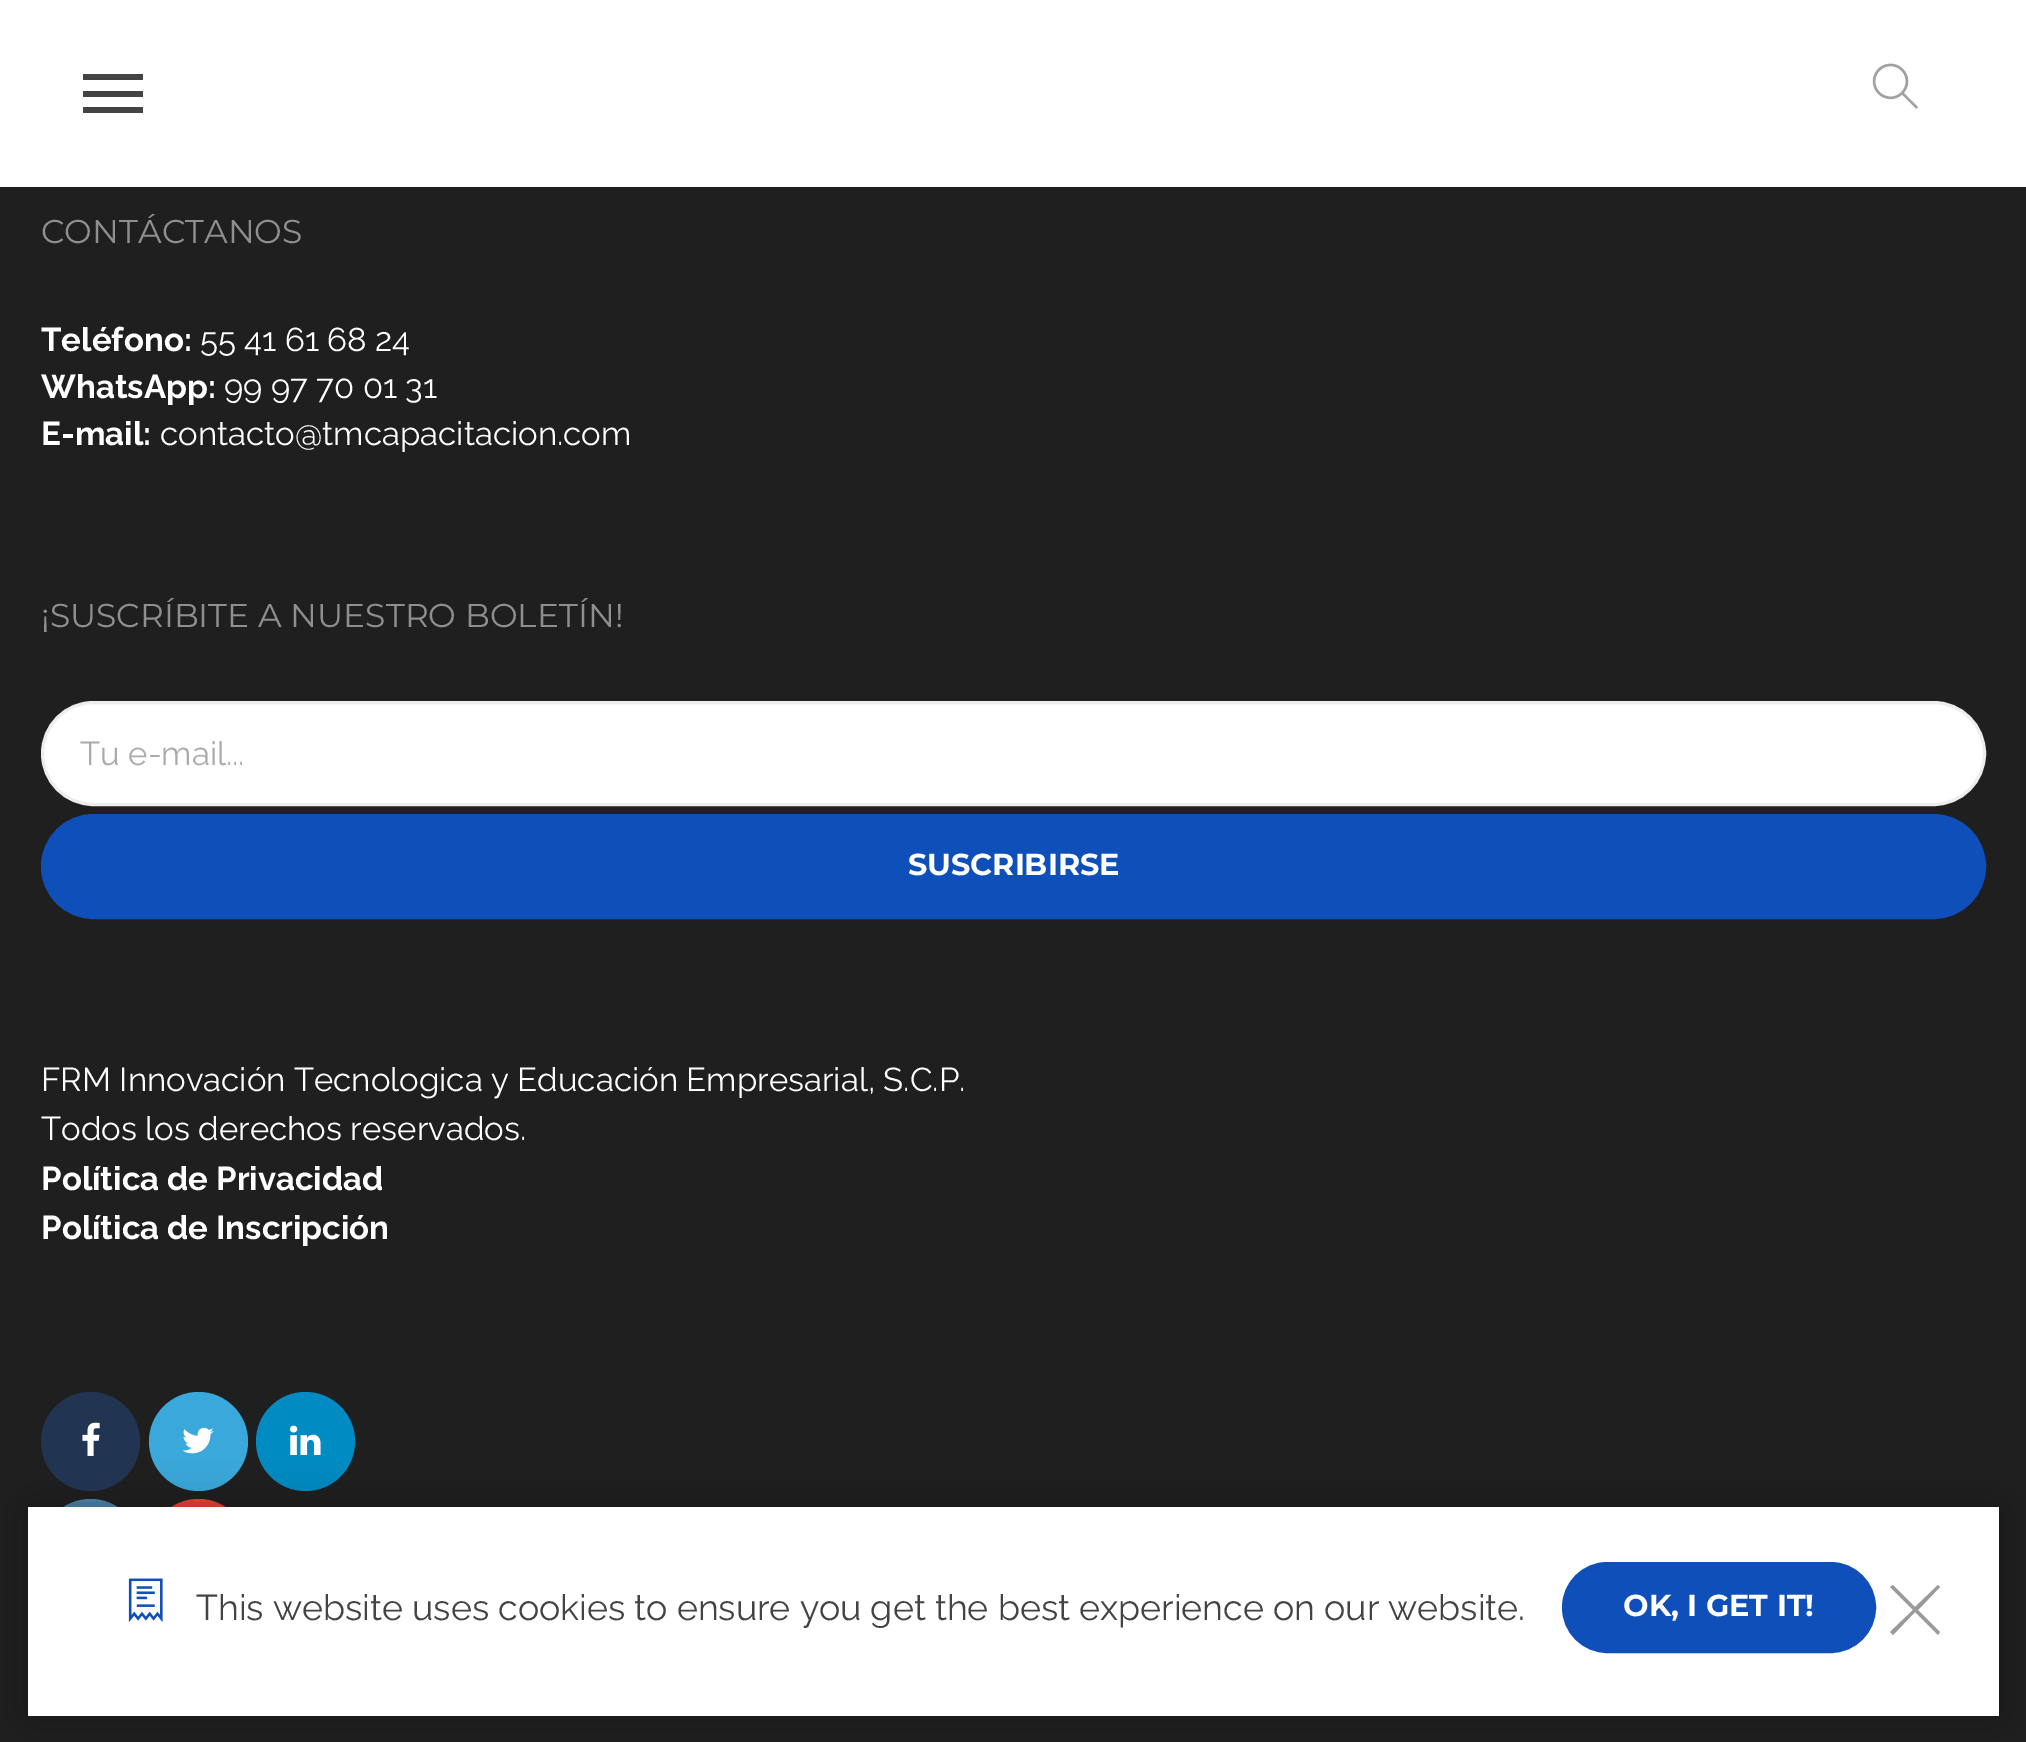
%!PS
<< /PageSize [2026 1742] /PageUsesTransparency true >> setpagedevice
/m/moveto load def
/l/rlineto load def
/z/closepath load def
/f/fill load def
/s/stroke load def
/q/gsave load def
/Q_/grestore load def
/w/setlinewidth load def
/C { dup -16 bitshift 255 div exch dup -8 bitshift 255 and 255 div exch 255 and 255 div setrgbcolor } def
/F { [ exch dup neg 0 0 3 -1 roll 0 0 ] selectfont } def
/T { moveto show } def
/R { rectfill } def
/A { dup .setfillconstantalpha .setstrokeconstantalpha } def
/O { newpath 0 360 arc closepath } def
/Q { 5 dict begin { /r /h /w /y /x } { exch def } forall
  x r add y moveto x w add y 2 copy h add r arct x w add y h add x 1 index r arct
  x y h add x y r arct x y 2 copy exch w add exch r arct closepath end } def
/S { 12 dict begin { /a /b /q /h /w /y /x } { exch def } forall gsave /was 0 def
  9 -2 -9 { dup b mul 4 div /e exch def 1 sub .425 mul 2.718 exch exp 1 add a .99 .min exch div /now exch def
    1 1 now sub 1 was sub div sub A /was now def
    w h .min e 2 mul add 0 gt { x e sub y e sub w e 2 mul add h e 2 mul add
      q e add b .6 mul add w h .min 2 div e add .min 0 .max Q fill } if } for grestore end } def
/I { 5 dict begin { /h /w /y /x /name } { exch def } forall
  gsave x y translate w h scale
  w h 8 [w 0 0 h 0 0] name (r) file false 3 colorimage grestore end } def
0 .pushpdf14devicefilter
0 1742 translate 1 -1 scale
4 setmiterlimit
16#1F1F1F C
0 0 2026 1742 R
16#FFFFFF C
0 0 2026 187 R
16#434343 C
83 74 60 6 R
83 91 60 6 R
83 107 60 6 R
(1.rgb) 1872 63 46 46 I
/Montserrat-Regular 33 F
16#8F8F8F C
(CONTÁCTANOS) 41 243 T
/Raleway-Bold 33 F
16#FFFFFF C
(Teléfono:) 41 351 T
/Raleway-Regular 33 F
(55 41 61 68 24) 200 351 T
/Raleway-Bold 33 F
(WhatsApp:) 41 398 T
/Raleway-Regular 33 F
(99 97 70 01 31) 224 398 T
/Raleway-Bold 33 F
(E-mail:) 41 445 T
/Raleway-Regular 33 F
(contacto@tmcapacitacion.com) 160 445 T
/Montserrat-Regular 33 F
16#8F8F8F C
(¡SUSCRÍBITE A NUESTRO BOLETÍN!) 41 627 T
16#FFFFFF C
42.5 702.5 1942 102 51 Q q f Q_
16#EDEDED C
3 w
s
/Raleway-Regular 33 F
16#AAAAAA C
(Tu e-mail...) 80 765 T
16#0F4FB9 C
44 817 1939 99 49.5 Q q f Q_
6 w
s
/Montserrat-Bold 30.25 F
16#FFFFFF C
(SUSCRIBIRSE) 908 875 T
/Raleway-Regular 33 F
(FRM Innovación Tecnologica y Educación Empresarial, S.C.P.) 41 1091 T
(Todos los derechos reservados.) 41 1140 T
/Raleway-Bold 33 F
(Política de Privacidad) 41 1190 T
(Política de Inscripción) 41 1239 T
16#213553 C
90.5 1441.5 49.5 O f
(2.rgb) 82 1422 18 34 I
16#3AA8DB C
198.5 1441.5 49.5 O f
(3.rgb) 182 1427 32 27 I
16#008BC2 C
305.5 1441.5 49.5 O f
(4.rgb) 289 1425 32 30 I
16#4F86AC C
90.5 1548.5 49.5 O f
16#ED4533 C
198.5 1548.5 49.5 O f
16#000000 C
28 1507 1971 209 0 20.5 .3 S
16#FFFFFF C
28 1507 1971 209 R
(5.rgb) 128 1578 35 45 I
/Raleway-Regular 35.75 F
16#434343 C
(This website uses cookies to ensure you get the best experience on our website.) 196 1620 T
16#0F4FB9 C
1565 1565 308 85 42.5 Q q f Q_
s
/Montserrat-Bold 30.25 F
16#FFFFFF C
(OK, I GET IT!) 1623 1616 T
16#999999 C
1918 1610 m 22 22 l -2 3 l -23 -23 l -22 23 l -3 -3 l 23 -22 l -23 -23 l 3 -2 l 22 22 l 23 -22 l 2 2 l z f
.poppdf14devicefilter showpage
